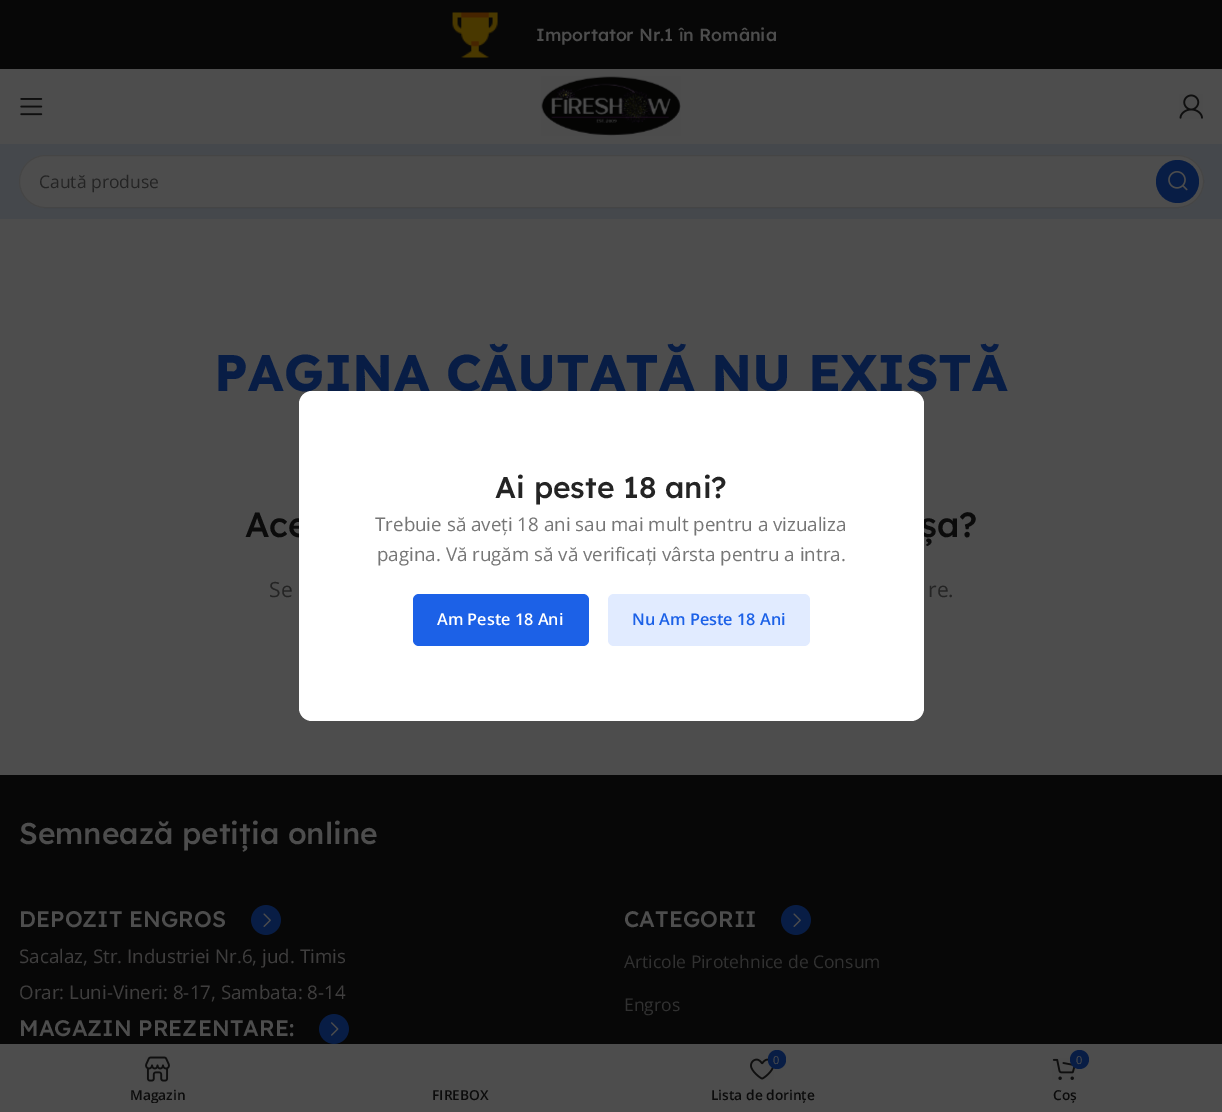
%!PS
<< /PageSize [1222 1112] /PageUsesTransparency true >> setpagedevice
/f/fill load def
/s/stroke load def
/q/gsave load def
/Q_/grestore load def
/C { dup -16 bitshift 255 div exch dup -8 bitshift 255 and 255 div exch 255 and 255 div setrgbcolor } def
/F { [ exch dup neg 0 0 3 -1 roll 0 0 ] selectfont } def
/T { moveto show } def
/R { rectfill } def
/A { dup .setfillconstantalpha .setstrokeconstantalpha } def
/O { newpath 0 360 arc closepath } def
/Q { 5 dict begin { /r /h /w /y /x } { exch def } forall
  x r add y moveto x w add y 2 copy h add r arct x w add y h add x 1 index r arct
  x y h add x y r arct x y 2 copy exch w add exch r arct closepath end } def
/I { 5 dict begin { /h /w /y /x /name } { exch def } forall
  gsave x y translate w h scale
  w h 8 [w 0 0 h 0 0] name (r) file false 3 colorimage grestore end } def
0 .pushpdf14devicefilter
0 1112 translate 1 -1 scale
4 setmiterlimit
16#4D4D4D C
0 0 1222 1112 R
16#070707 C
0 0 1222 69 R
(1.rgb) 452 12 46 46 I
/LexendDeca-Medium 17.5 F
16#4D4D4D C
(Importator Nr.1 în România) 536 41 T
(2.rgb) 20 98 23 18 I
(3.rgb) 541 76 140 60 I
(4.rgb) 1179 94 24 25 I
16#45484C C
0 144 1222 75 R
16#4D4D4D C
19 155 1185 53 26.5 Q f
0.1 A
16#000000 C
19.5 155.5 1184 52 26 Q s
/OpenSans-Regular 17.5 F
1 A
16#242424 C
(Caută produse) 39 188 T
16#081D45 C
1177.5 181.5 21.5 O f
(5.rgb) 1168 171 20 20 I
/LexendDeca-Bold 51.3 F
(PAGINA CĂUTATĂ NU EXISTĂ) 214 391 T
/LexendDeca-Medium 35 F
16#0B0B0B C
(Ace) 245 537 T
(șa?) 920 537 T
/OpenSans-Regular 21 F
16#242424 C
(Se) 269 597 T
(re.) 928 597 T
16#070707 C
0 775 1222 269 R
/LexendDeca-Medium 30 F
16#4D4D4D C
(Semnează petiția online) 19 844 T
/LexendDeca-Medium 22.5 F
(DEPOZIT ENGROS) 19 927 T
(6.rgb) 251 905 30 30 I
/OpenSans-Regular 18.75 F
16#3F3E3E C
(Sacalaz, Str. Industriei Nr.6, jud. Timis) 19 963 T
(Orar: Luni-Vineri: 8-17, Sambata: 8-14) 19 999 T
/LexendDeca-Medium 22.5 F
16#4D4D4D C
(MAGAZIN PREZENTARE:) 19 1036 T
(7.rgb) 319 1014 30 30 I
(CATEGORII) 624 927 T
(6.rgb) 781 905 30 30 I
/OpenSans-Regular 17.5 F
16#313131 C
(Articole Pirotehnice de Consum) 624 968 T
(Engros) 624 1011 T
16#FFFFFF C
299 391 625 330 13 Q f
/LexendDeca-Medium 30 F
16#242424 C
(Ai peste 18 ani?) 495 498 T
/OpenSans-Regular 18.75 F
16#767676 C
(Trebuie să aveți 18 ani sau mai mult pentru a vizualiza) 375 531 T
(pagina. Vă rugăm să vă verificați vârsta pentru a intra.) 377 561 T
16#1C61E7 C
413 594 176 52 6 Q f
/OpenSans-SemiBold 16.25 F
16#FFFFFF C
(Am Peste 18 Ani) 437 625 T
16#E1EBFF C
608 594 202 52 6 Q f
16#1C61E7 C
(Nu Am Peste 18 Ani) 632 625 T
(8.rgb) 145 1056 25 26 I
q
19 1086 277 17 rectclip
/OpenSans-SemiBold 13.75 F
16#0B0B0B C
(Magazin) 130 1100 T
Q_
/OpenSans-SemiBold 13.75 F
16#0B0B0B C
(FIREBOX) 432 1100 T
(9.rgb) 750 1058 24 22 I
16#081D45 C
768 1050 18 19 9 Q f
/OpenSans-Regular 11 F
16#4D4D4D C
(0) 773 1064 T
/OpenSans-SemiBold 13.75 F
16#0B0B0B C
(Lista de dorințe) 711 1100 T
(10.rgb) 1052 1058 24 22 I
16#081D45 C
1079.5 1059.5 9.5 O f
/OpenSans-Regular 11 F
16#4D4D4D C
(0) 1076 1064 T
/OpenSans-SemiBold 13.75 F
16#0B0B0B C
(Coș) 1053 1100 T
.poppdf14devicefilter showpage
